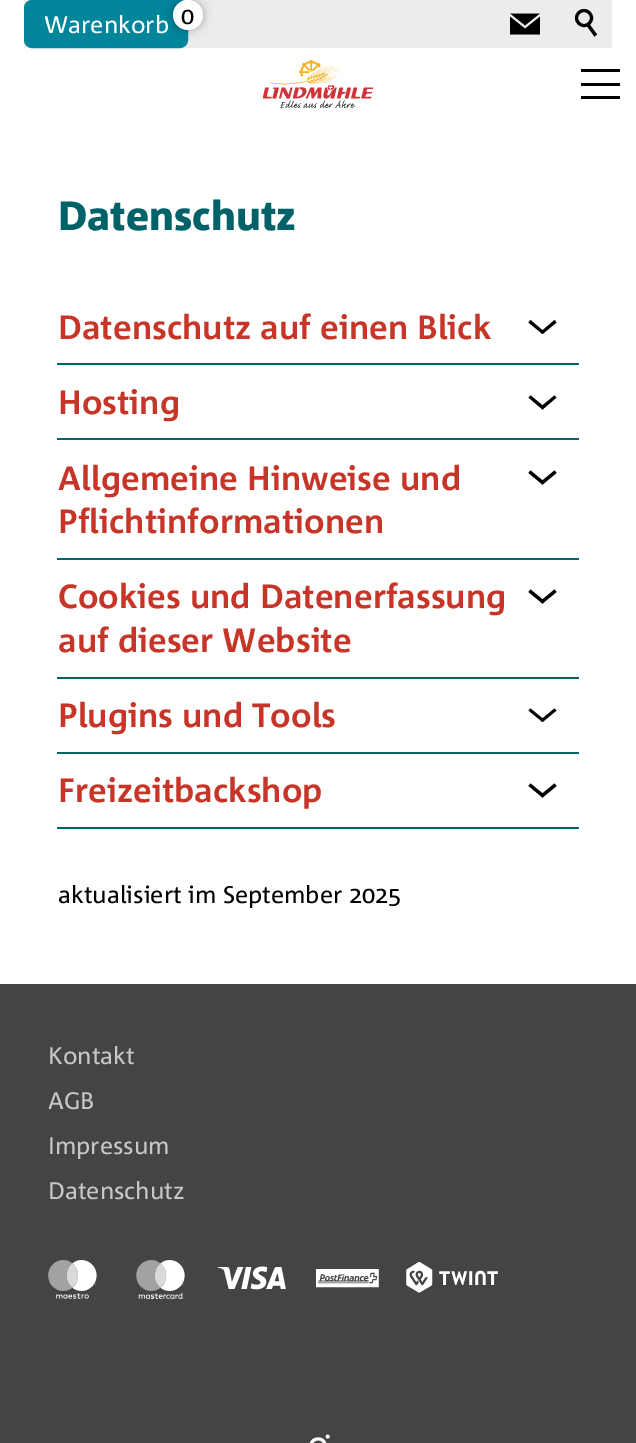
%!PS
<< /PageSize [636 1443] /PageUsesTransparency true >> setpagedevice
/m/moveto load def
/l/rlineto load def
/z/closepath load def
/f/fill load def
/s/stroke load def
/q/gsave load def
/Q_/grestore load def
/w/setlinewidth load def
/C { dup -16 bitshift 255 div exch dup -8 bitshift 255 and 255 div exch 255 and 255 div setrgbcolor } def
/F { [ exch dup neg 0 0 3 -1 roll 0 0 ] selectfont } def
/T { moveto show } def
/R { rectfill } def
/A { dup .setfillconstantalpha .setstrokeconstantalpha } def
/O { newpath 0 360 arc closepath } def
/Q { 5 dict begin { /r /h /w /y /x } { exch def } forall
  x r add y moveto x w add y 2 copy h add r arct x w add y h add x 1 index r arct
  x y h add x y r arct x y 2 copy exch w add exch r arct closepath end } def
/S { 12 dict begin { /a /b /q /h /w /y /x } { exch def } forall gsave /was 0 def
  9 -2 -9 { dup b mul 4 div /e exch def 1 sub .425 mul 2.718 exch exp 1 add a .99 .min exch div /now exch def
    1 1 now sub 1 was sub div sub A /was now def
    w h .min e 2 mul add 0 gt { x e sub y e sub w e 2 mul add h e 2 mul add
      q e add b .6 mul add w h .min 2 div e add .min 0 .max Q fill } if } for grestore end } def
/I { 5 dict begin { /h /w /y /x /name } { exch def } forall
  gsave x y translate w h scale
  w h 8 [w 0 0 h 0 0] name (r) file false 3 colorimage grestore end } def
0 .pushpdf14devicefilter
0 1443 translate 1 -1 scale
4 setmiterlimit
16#FFFFFF C
0 0 636 1443 R
16#ECECEC C
24 0 588 48 R
(1.rgb) 510 13 30 22 I
16#000000 C
3 w
584 18 7.5 O s
589 23.5 m 8 11 l -2.5 2 l -8 -11 l z f
16#00859B C
25 1 162 46 7 Q q f Q_
2 w
s
/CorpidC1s-Regular 24 F
16#FFFFFF C
(Warenkorb) 44 33 T
16#000000 C
173 0 30 30 15 4.5 .3 S
16#FFFFFF C
188 15 15 O f
16#000000 C
(0) 181 24 T
(2.rgb) 263 60 111 48 I
581 69 39 3 R
581 83 39 3 R
581 96 39 3 R
/CorpidC1s-Black 40.75 F
16#006269 C
(Datenschutz) 58 230 T
57 363 522 2 R
/CorpidC1s-Bold 33.6 F
16#C63527 C
(Datenschutz auf einen Blick) 58 339 T
16#000000 C
530.5 320 m 14 12 l -2 2 l -14 -11.5 l z f
540.5 332 m 14 -12 l 2 2.5 l -14 11.5 l z f
16#006269 C
57 438 522 2 R
16#C63527 C
(Hosting) 58 414 T
16#000000 C
530.5 395.5 m 14 11.5 l -2 2.5 l -14 -12 l z f
540.5 407 m 14 -11.5 l 2 2 l -14 12 l z f
16#006269 C
57 558 522 2 R
16#C63527 C
(Allgemeine Hinweise und) 58 490 T
16#000000 C
530.5 470.5 m 14 11.5 l -2 2.5 l -14 -11.5 l z f
540.5 482 m 14 -11.5 l 2 2.5 l -14 11.5 l z f
16#C63527 C
(Pflichtinformationen) 58 533 T
16#006269 C
57 677 522 2 R
16#C63527 C
(Cookies und Datenerfassung) 58 608 T
16#000000 C
530.5 589.5 m 14 11.5 l -2 2.5 l -14 -11.5 l z f
540.5 601 m 14 -11.5 l 2 2.5 l -14 11.5 l z f
16#C63527 C
(auf dieser Website) 58 652 T
16#006269 C
57 752 522 2 R
16#C63527 C
(Plugins und Tools) 58 727 T
16#000000 C
530.5 708.5 m 14 11.5 l -2 2 l -14 -11.5 l z f
540.5 720 m 14 -11.5 l 2 2 l -14 11.5 l z f
16#006269 C
57 827 522 2 R
16#C63527 C
(Freizeitbackshop) 58 802 T
16#000000 C
530.5 783.5 m 14 11.5 l -2 2.5 l -14 -11.5 l z f
540.5 795 m 14 -11.5 l 2 2.5 l -14 11.5 l z f
/CorpidC1s-Regular 24 F
(aktualisiert im September 2025) 58 903 T
16#444444 C
0 984 636 459 R
16#C7C7C7 C
(Kontakt) 48 1064 T
(AGB) 48 1109 T
(Impressum) 48 1154 T
(Datenschutz) 48 1199 T
(3.rgb) 48 1260 450 39 I
(4.rgb) 309 1434 21 9 I
.poppdf14devicefilter showpage
